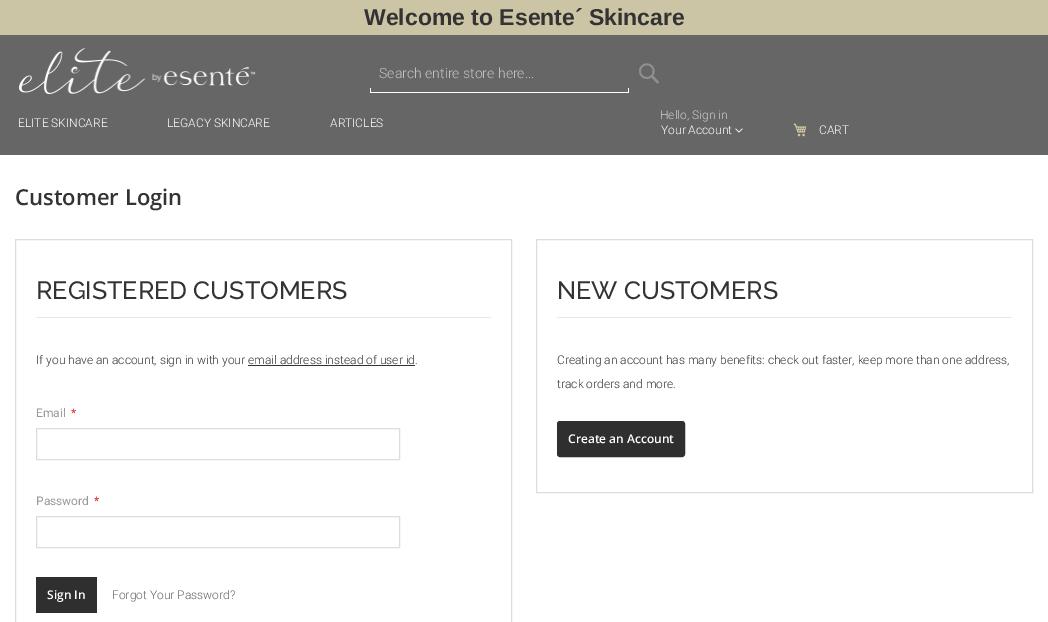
%!PS
<< /PageSize [1048 622] >> setpagedevice
/f/fill load def
/s/stroke load def
/q/gsave load def
/Q_/grestore load def
/C { dup -16 bitshift 255 div exch dup -8 bitshift 255 and 255 div exch 255 and 255 div setrgbcolor } def
/F { [ exch dup neg 0 0 3 -1 roll 0 0 ] selectfont } def
/T { moveto show } def
/R { rectfill } def
/Q { 5 dict begin { /r /h /w /y /x } { exch def } forall
  x r add y moveto x w add y 2 copy h add r arct x w add y h add x 1 index r arct
  x y h add x y r arct x y 2 copy exch w add exch r arct closepath end } def
/I { 5 dict begin { /h /w /y /x /name } { exch def } forall
  gsave x y translate w h scale
  w h 8 [w 0 0 h 0 0] name (r) file false 3 colorimage grestore end } def
0 622 translate 1 -1 scale
4 setmiterlimit
16#FFFFFF C
0 0 1048 622 R
16#CCC5A5 C
0 0 1048 35 R
/LiberationSans-Bold 23 F
16#333333 C
(Welcome to Esente´ Skincare) 364 25 T
16#666666 C
0 35 1048 120 R
(1.rgb) 19 48 237 46 I
16#FFFFFF C
370 92 259 1 R
/Roboto-Light 14 F
16#C2C2C2 C
(Search entire store here...) 379 78 T
16#FFFFFF C
370 88 1 5 R
628 88 1 5 R
(2.rgb) 639 63 20 21 I
/Roboto-Light 12 F
(ELITE SKINCARE) 18 127 T
(LEGACY SKINCARE) 167 127 T
(ARTICLES) 330 127 T
16#CCCCCC C
(Hello, Sign in) 660 119 T
16#FFFFFF C
(Your Account) 661 134 T
(3.rgb) 735 128 8 5 I
(4.rgb) 793 123 14 14 I
(CART) 819 134 T
/OpenSans-SemiBold 22 F
16#333333 C
(Customer Login) 15 205 T
16#DDDDDD C
15.5 239.5 496 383 rectstroke
16#E8E8E8 C
36 317 455 1 R
/Raleway-Medium 25 F
16#333333 C
(REGISTERED CUSTOMERS) 36 299 T
/Roboto-Light 12 F
(If you have an account, sign in with your email address instead of user id.) 36 364 T
248 365 167 1 R
/Roboto-Regular 12 F
16#999999 C
(Email) 36 417 T
16#E02B27 C
(*) 71 417 T
16#DDDDDD C
36.5 428.5 363 31 .5 Q s
16#999999 C
(Password) 36 505 T
16#E02B27 C
(*) 94 505 T
16#DDDDDD C
36.5 516.5 363 31 .5 Q s
16#2F2F2F C
36 577 61 36 R
/OpenSans-SemiBold 12 F
16#FFFFFF C
(Sign In) 47 599 T
/Roboto-Light 12 F
16#666666 C
(Forgot Your Password?) 112 599 T
16#DDDDDD C
536.5 239.5 496 253 rectstroke
16#E8E8E8 C
557 317 455 1 R
/Raleway-Medium 25 F
16#333333 C
(NEW CUSTOMERS) 557 299 T
/Roboto-Light 12 F
(Creating an account has many benefits: check out faster, keep more than one address,) 557 364 T
(track orders and more.) 557 388 T
16#2F2F2F C
557.5 421.5 127 35 2.5 Q q f Q_
s
/OpenSans-SemiBold 12 F
16#FFFFFF C
(Create an Account) 568 443 T
showpage
